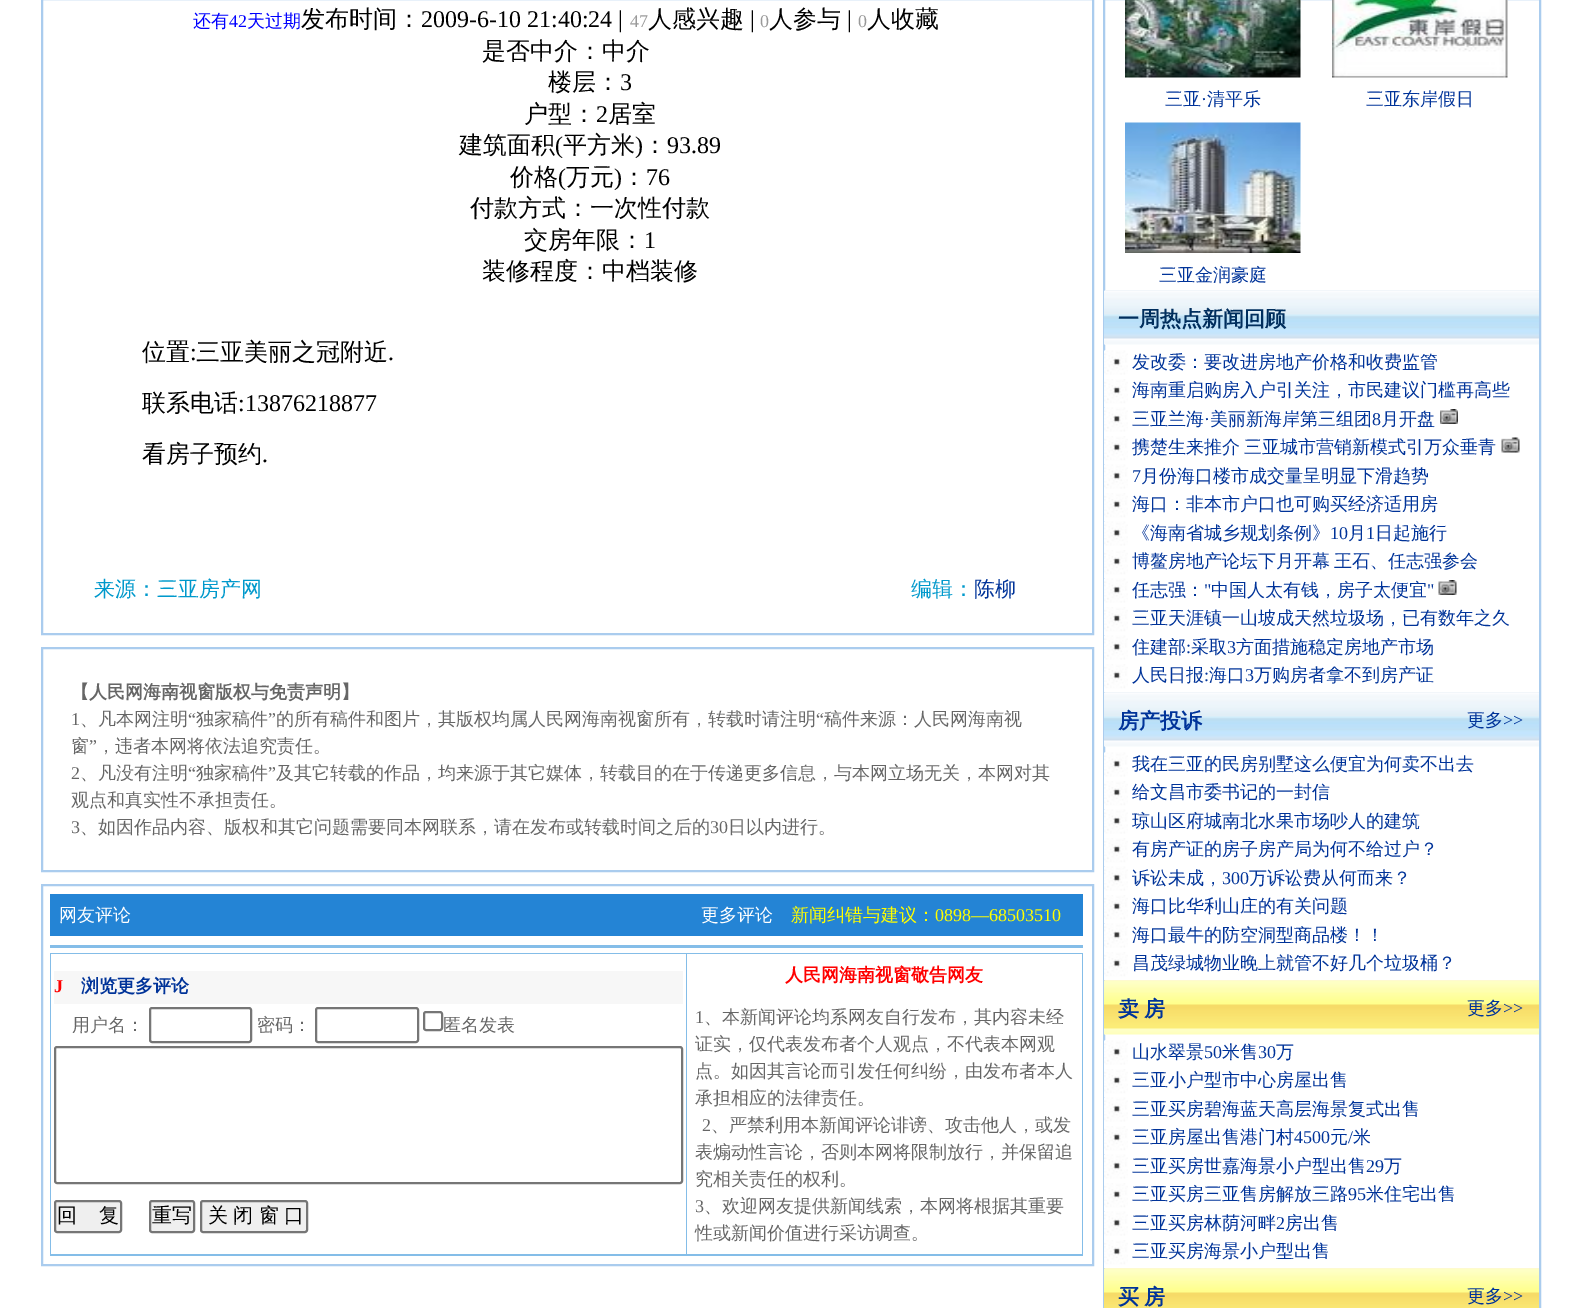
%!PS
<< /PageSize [1579 1308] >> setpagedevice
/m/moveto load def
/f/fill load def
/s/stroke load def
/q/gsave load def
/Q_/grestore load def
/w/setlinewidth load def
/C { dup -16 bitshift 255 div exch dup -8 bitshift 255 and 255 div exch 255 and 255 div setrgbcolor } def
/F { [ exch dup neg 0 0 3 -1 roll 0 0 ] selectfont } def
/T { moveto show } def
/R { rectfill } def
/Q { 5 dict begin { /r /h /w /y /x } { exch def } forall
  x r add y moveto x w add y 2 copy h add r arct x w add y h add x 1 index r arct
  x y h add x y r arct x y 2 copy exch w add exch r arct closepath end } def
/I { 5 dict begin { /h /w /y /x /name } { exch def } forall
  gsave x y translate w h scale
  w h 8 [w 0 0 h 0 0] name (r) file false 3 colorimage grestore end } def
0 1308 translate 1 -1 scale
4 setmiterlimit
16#FFFFFF C
0 0 1579 1308 R
16#AACCEE C
2 w
42 -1 1051 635 rectstroke
/WenQuanYiZenHei-Medium 18 F
16#0000FF C
(还有) 193 27 T
/LiberationSerif-Regular 18 F
(42) 229 27 T
/WenQuanYiZenHei-Medium 18 F
(天过期) 247 27 T
/WenQuanYiZenHei-Medium 24 F
16#000000 C
(发布时间：) 301 27 T
/LiberationSerif-Regular 24 F
(2009-6-10 21:40:24 |) 421 27 T
/LiberationSerif-Regular 18 F
16#999999 C
(47) 630 27 T
/WenQuanYiZenHei-Medium 24 F
16#000000 C
(人感兴趣) 648 27 T
/LiberationSerif-Regular 24 F
(|) 750 27 T
/LiberationSerif-Regular 18 F
16#999999 C
(0) 760 27 T
/WenQuanYiZenHei-Medium 24 F
16#000000 C
(人参与) 769 27 T
/LiberationSerif-Regular 24 F
(|) 847 27 T
/LiberationSerif-Regular 18 F
16#999999 C
(0) 858 27 T
/WenQuanYiZenHei-Medium 24 F
16#000000 C
(人收藏) 867 27 T
(是否中介：中介) 482 59 T
(楼层：) 548 90 T
/LiberationSerif-Regular 24 F
(3) 620 90 T
/WenQuanYiZenHei-Medium 24 F
(户型：) 524 122 T
/LiberationSerif-Regular 24 F
(2) 596 122 T
/WenQuanYiZenHei-Medium 24 F
(居室) 608 122 T
(建筑面积) 459 153 T
/LiberationSerif-Regular 24 F
(\() 555 153 T
/WenQuanYiZenHei-Medium 24 F
(平方米) 563 153 T
/LiberationSerif-Regular 24 F
(\)) 635 153 T
/WenQuanYiZenHei-Medium 24 F
(：) 643 153 T
/LiberationSerif-Regular 24 F
(93.89) 667 153 T
/WenQuanYiZenHei-Medium 24 F
(价格) 510 185 T
/LiberationSerif-Regular 24 F
(\() 558 185 T
/WenQuanYiZenHei-Medium 24 F
(万元) 566 185 T
/LiberationSerif-Regular 24 F
(\)) 614 185 T
/WenQuanYiZenHei-Medium 24 F
(：) 622 185 T
/LiberationSerif-Regular 24 F
(76) 646 185 T
/WenQuanYiZenHei-Medium 24 F
(付款方式：一次性付款) 470 216 T
(交房年限：) 524 248 T
/LiberationSerif-Regular 24 F
(1) 644 248 T
/WenQuanYiZenHei-Medium 24 F
(装修程度：中档装修) 482 279 T
(位置) 142 360 T
/LiberationSerif-Regular 24 F
(:) 190 360 T
/WenQuanYiZenHei-Medium 24 F
(三亚美丽之冠附近) 196 360 T
/LiberationSerif-Regular 24 F
(.) 388 360 T
/WenQuanYiZenHei-Medium 24 F
(联系电话) 142 411 T
/LiberationSerif-Regular 24 F
(:13876218877) 238 411 T
/WenQuanYiZenHei-Medium 24 F
(看房子预约) 142 462 T
/LiberationSerif-Regular 24 F
(.) 262 462 T
/WenQuanYiZenHei-Medium 21 F
16#0099CC C
(来源：三亚房产网) 94 596 T
(编辑：) 911 596 T
16#003399 C
(陈柳) 974 596 T
16#AACCEE C
1104 -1 436 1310 rectstroke
(1.rgb) 1125 0 176 78 I
/WenQuanYiZenHei-Medium 18 F
16#003399 C
(三亚) 1165 105 T
/LiberationSerif-Regular 18 F
(·) 1201 105 T
/WenQuanYiZenHei-Medium 18 F
(清平乐) 1207 105 T
(2.rgb) 1332 0 176 78 I
(三亚东岸假日) 1366 105 T
(3.rgb) 1125 122 176 131 I
(三亚金润豪庭) 1159 281 T
(4.rgb) 1104 290 435 55 I
/WenQuanYiZenHei-Bold 21 F
16#002E5D C
(一周热点新闻回顾) 1118 326 T
(5.rgb) 1104 350 24 29 I
/WenQuanYiZenHei-Medium 18 F
16#003399 C
(发改委：要改进房地产价格和收费监管) 1132 368 T
(6.rgb) 1104 379 24 29 I
(海南重启购房入户引关注，市民建议门槛再高些) 1132 396 T
(7.rgb) 1104 407 24 29 I
(三亚兰海) 1132 425 T
/LiberationSerif-Regular 18 F
(·) 1204 425 T
/WenQuanYiZenHei-Medium 18 F
(美丽新海岸第三组团) 1210 425 T
/LiberationSerif-Regular 18 F
(8) 1372 425 T
/WenQuanYiZenHei-Medium 18 F
(月开盘) 1381 425 T
(8.rgb) 1440 409 18 15 I
(6.rgb) 1104 436 24 29 I
1132 453 m -1 0 32 (携楚生来推介 三亚城市营销新模式引万众垂青) widthshow
(9.rgb) 1501 437 19 16 I
(7.rgb) 1104 464 24 29 I
/LiberationSerif-Regular 18 F
(7) 1132 482 T
/WenQuanYiZenHei-Medium 18 F
(月份海口楼市成交量呈明显下滑趋势) 1141 482 T
(6.rgb) 1104 493 24 29 I
(海口：非本市户口也可购买经济适用房) 1132 510 T
(7.rgb) 1104 521 24 29 I
(《海南省城乡规划条例》) 1132 539 T
/LiberationSerif-Regular 18 F
(10) 1330 539 T
/WenQuanYiZenHei-Medium 18 F
(月) 1348 539 T
/LiberationSerif-Regular 18 F
(1) 1366 539 T
/WenQuanYiZenHei-Medium 18 F
(日起施行) 1375 539 T
(6.rgb) 1104 550 24 29 I
1132 567 m -1 0 32 (博鳌房地产论坛下月开幕 王石、任志强参会) widthshow
(7.rgb) 1104 578 24 29 I
(任志强：) 1132 596 T
/LiberationSerif-Regular 18 F
(") 1204 596 T
/WenQuanYiZenHei-Medium 18 F
(中国人太有钱，房子太便宜) 1211 596 T
/LiberationSerif-Regular 18 F
(") 1427 596 T
(10.rgb) 1438 580 19 15 I
(6.rgb) 1104 607 24 29 I
/WenQuanYiZenHei-Medium 18 F
(三亚天涯镇一山坡成天然垃圾场，已有数年之久) 1132 624 T
(7.rgb) 1104 635 24 29 I
(住建部) 1132 653 T
/LiberationSerif-Regular 18 F
(:) 1186 653 T
/WenQuanYiZenHei-Medium 18 F
(采取) 1191 653 T
/LiberationSerif-Regular 18 F
(3) 1227 653 T
/WenQuanYiZenHei-Medium 18 F
(方面措施稳定房地产市场) 1236 653 T
(6.rgb) 1104 664 24 29 I
(人民日报) 1132 681 T
/LiberationSerif-Regular 18 F
(:) 1204 681 T
/WenQuanYiZenHei-Medium 18 F
(海口) 1209 681 T
/LiberationSerif-Regular 18 F
(3) 1245 681 T
/WenQuanYiZenHei-Medium 18 F
(万购房者拿不到房产证) 1254 681 T
(11.rgb) 1104 692 435 55 I
/WenQuanYiZenHei-Bold 21 F
(房产投诉) 1118 728 T
/WenQuanYiZenHei-Medium 18 F
(更多) 1467 726 T
/LiberationSerif-Regular 18 F
(>>) 1503 726 T
(5.rgb) 1104 752 24 29 I
/WenQuanYiZenHei-Medium 18 F
(我在三亚的民房别墅这么便宜为何卖不出去) 1132 770 T
(6.rgb) 1104 781 24 29 I
(给文昌市委书记的一封信) 1132 798 T
(7.rgb) 1104 809 24 29 I
(琼山区府城南北水果市场吵人的建筑) 1132 827 T
(6.rgb) 1104 838 24 29 I
(有房产证的房子房产局为何不给过户？) 1132 855 T
(7.rgb) 1104 866 24 29 I
(诉讼未成，) 1132 884 T
/LiberationSerif-Regular 18 F
(300) 1222 884 T
/WenQuanYiZenHei-Medium 18 F
(万诉讼费从何而来？) 1249 884 T
(6.rgb) 1104 895 24 29 I
(海口比华利山庄的有关问题) 1132 912 T
(7.rgb) 1104 923 24 29 I
(海口最牛的防空洞型商品楼！！) 1132 941 T
(6.rgb) 1104 952 24 29 I
(昌茂绿城物业晚上就管不好几个垃圾桶？) 1132 969 T
(12.rgb) 1104 980 435 55 I
/WenQuanYiZenHei-Bold 21 F
1118 1016 m -1 0 32 (卖 房) widthshow
/WenQuanYiZenHei-Medium 18 F
(更多) 1467 1014 T
/LiberationSerif-Regular 18 F
(>>) 1503 1014 T
(5.rgb) 1104 1040 24 29 I
/WenQuanYiZenHei-Medium 18 F
(山水翠景) 1132 1058 T
/LiberationSerif-Regular 18 F
(50) 1204 1058 T
/WenQuanYiZenHei-Medium 18 F
(米售) 1222 1058 T
/LiberationSerif-Regular 18 F
(30) 1258 1058 T
/WenQuanYiZenHei-Medium 18 F
(万) 1276 1058 T
(6.rgb) 1104 1069 24 29 I
(三亚小户型市中心房屋出售) 1132 1086 T
(7.rgb) 1104 1097 24 29 I
(三亚买房碧海蓝天高层海景复式出售) 1132 1115 T
(6.rgb) 1104 1126 24 29 I
(三亚房屋出售港门村) 1132 1143 T
/LiberationSerif-Regular 18 F
(4500) 1294 1143 T
/WenQuanYiZenHei-Medium 18 F
(元) 1330 1143 T
/LiberationSerif-Regular 18 F
(/) 1348 1143 T
/WenQuanYiZenHei-Medium 18 F
(米) 1353 1143 T
(7.rgb) 1104 1154 24 29 I
(三亚买房世嘉海景小户型出售) 1132 1172 T
/LiberationSerif-Regular 18 F
(29) 1366 1172 T
/WenQuanYiZenHei-Medium 18 F
(万) 1384 1172 T
(6.rgb) 1104 1183 24 29 I
(三亚买房三亚售房解放三路) 1132 1200 T
/LiberationSerif-Regular 18 F
(95) 1348 1200 T
/WenQuanYiZenHei-Medium 18 F
(米住宅出售) 1366 1200 T
(7.rgb) 1104 1211 24 29 I
(三亚买房林荫河畔) 1132 1229 T
/LiberationSerif-Regular 18 F
(2) 1276 1229 T
/WenQuanYiZenHei-Medium 18 F
(房出售) 1285 1229 T
(6.rgb) 1104 1240 24 29 I
(三亚买房海景小户型出售) 1132 1257 T
(13.rgb) 1104 1268 435 40 I
/WenQuanYiZenHei-Bold 21 F
1118 1304 m -1 0 32 (买 房) widthshow
/WenQuanYiZenHei-Medium 18 F
(更多) 1467 1302 T
/LiberationSerif-Regular 18 F
(>>) 1503 1302 T
16#AACCEE C
42 648 1051 223 rectstroke
/WenQuanYiZenHei-Bold 18 F
16#666666 C
(【人民网海南视窗版权与免责声明】) 71 698 T
/LiberationSerif-Regular 18 F
(1) 71 725 T
/WenQuanYiZenHei-Medium 18 F
(、凡本网注明) 80 725 T
/LiberationSerif-Regular 18 F
(“) 188 725 T
/WenQuanYiZenHei-Medium 18 F
(独家稿件) 196 725 T
/LiberationSerif-Regular 18 F
(”) 268 725 T
/WenQuanYiZenHei-Medium 18 F
(的所有稿件和图片，其版权均属人民网海南视窗所有，转载时请注明) 276 725 T
/LiberationSerif-Regular 18 F
(“) 816 725 T
/WenQuanYiZenHei-Medium 18 F
(稿件来源：人民网海南视) 824 725 T
(窗) 71 752 T
/LiberationSerif-Regular 18 F
(”) 89 752 T
/WenQuanYiZenHei-Medium 18 F
(，违者本网将依法追究责任。) 97 752 T
/LiberationSerif-Regular 18 F
(2) 71 779 T
/WenQuanYiZenHei-Medium 18 F
(、凡没有注明) 80 779 T
/LiberationSerif-Regular 18 F
(“) 188 779 T
/WenQuanYiZenHei-Medium 18 F
(独家稿件) 196 779 T
/LiberationSerif-Regular 18 F
(”) 268 779 T
/WenQuanYiZenHei-Medium 18 F
(及其它转载的作品，均来源于其它媒体，转载目的在于传递更多信息，与本网立场无关，本网对其) 276 779 T
(观点和真实性不承担责任。) 71 806 T
/LiberationSerif-Regular 18 F
(3) 71 833 T
/WenQuanYiZenHei-Medium 18 F
(、如因作品内容、版权和其它问题需要同本网联系，请在发布或转载时间之后的) 80 833 T
/LiberationSerif-Regular 18 F
(30) 710 833 T
/WenQuanYiZenHei-Medium 18 F
(日以内进行。) 728 833 T
16#AACCEE C
42 885 1051 380 rectstroke
16#2484D5 C
50 894 1033 42 R
16#FFFFFF C
(网友评论) 59 921 T
(更多评论) 701 921 T
16#FFFF00 C
(新闻纠错与建议：) 791 921 T
/LiberationSerif-Regular 18 F
(0898—68503510) 935 921 T
16#84BDE8 C
50 945 1033 3 R
50 953 1033 303 R
16#FFFFFF C
51 954 635 300 R
16#F7F7F7 C
54 971 629 33 R
/LiberationSerif-Bold 18 F
16#FF0000 C
(J) 54 992 T
/WenQuanYiZenHei-Bold 18 F
16#003399 C
(浏览更多评论) 81 992 T
/WenQuanYiZenHei-Medium 18 F
16#666666 C
(用户名：) 72 1031 T
16#767676 C
150 1008 101 34 2 Q s
16#666666 C
(密码：) 257 1031 T
16#767676 C
316 1008 102 34 2 Q s
424 1012 18 18 2 Q s
16#666666 C
(匿名发表) 443 1031 T
16#767676 C
55 1047 627 136 2 Q s
16#EFEFEF C
55 1201 66 31 2 Q q f Q_
16#767676 C
s
/WenQuanYiZenHei-Medium 20 F
16#000000 C
57 1222 m -.5 0 32 (回    复) widthshow
16#EFEFEF C
150 1201 44 31 2 Q q f Q_
16#767676 C
s
16#000000 C
(重写) 152 1222 T
16#EFEFEF C
201 1201 106 31 2 Q q f Q_
16#767676 C
s
16#000000 C
208 1222 m -.5 0 32 (关 闭 窗 口) widthshow
16#FFFFFF C
687 954 395 300 R
/WenQuanYiZenHei-Bold 18 F
16#FF0000 C
(人民网海南视窗敬告网友) 785 981 T
/LiberationSerif-Regular 18 F
16#666666 C
(1) 695 1023 T
/WenQuanYiZenHei-Medium 18 F
(、本新闻评论均系网友自行发布，其内容未经) 704 1023 T
(证实，仅代表发布者个人观点，不代表本网观) 695 1050 T
(点。如因其言论而引发任何纠纷，由发布者本人) 695 1077 T
(承担相应的法律责任。) 695 1104 T
/LiberationSerif-Regular 18 F
(2) 702 1131 T
/WenQuanYiZenHei-Medium 18 F
(、严禁利用本新闻评论诽谤、攻击他人，或发) 711 1131 T
(表煽动性言论，否则本网将限制放行，并保留追) 695 1158 T
(究相关责任的权利。) 695 1185 T
/LiberationSerif-Regular 18 F
(3) 695 1212 T
/WenQuanYiZenHei-Medium 18 F
(、欢迎网友提供新闻线索，本网将根据其重要) 704 1212 T
(性或新闻价值进行采访调查。) 695 1239 T
showpage
